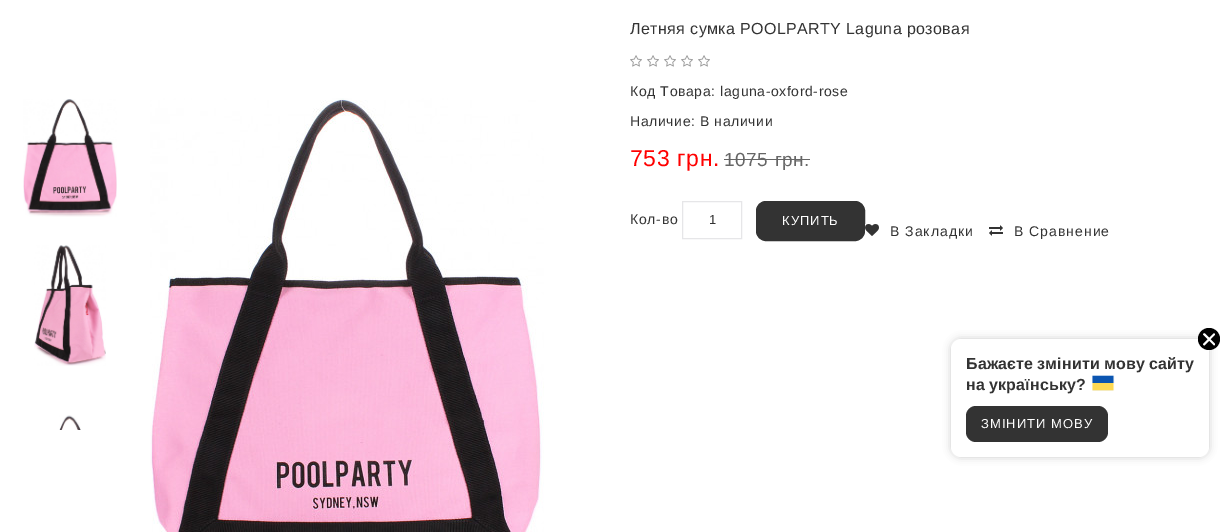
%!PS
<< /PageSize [1229 532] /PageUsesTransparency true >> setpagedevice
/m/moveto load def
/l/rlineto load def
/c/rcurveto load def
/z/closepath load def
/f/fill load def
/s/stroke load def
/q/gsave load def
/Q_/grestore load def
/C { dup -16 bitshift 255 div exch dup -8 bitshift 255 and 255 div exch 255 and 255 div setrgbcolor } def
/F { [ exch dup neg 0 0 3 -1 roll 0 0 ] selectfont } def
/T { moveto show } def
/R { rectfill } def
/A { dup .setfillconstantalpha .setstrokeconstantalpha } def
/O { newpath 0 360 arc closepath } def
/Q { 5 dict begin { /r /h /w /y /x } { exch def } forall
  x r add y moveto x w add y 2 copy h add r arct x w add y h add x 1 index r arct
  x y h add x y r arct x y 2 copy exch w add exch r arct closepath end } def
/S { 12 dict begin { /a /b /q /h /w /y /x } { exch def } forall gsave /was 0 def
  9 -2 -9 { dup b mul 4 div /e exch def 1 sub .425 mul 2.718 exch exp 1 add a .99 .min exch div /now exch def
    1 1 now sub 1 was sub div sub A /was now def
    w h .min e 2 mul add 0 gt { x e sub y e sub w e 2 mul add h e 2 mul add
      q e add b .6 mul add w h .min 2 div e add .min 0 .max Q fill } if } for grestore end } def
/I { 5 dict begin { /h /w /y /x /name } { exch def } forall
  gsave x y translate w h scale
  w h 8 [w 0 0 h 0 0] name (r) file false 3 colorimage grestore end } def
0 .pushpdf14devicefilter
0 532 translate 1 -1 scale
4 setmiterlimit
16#FFFFFF C
0 0 1229 532 R
(1.rgb) 23 99 94 118 I
(2.rgb) 34 245 72 121 I
(3.rgb) 59 415 22 15 I
(4.rgb) 150 98 394 434 I
/LiberationSans-Regular 16 F
16#333333 C
630 34 m .4 0 (Летняя сумка POOLPARTY Laguna розовая) ashow
(5.rgb) 630 55 12 12 I
(5.rgb) 647 55 12 12 I
(5.rgb) 664 55 12 12 I
(5.rgb) 681 55 12 12 I
(5.rgb) 698 55 12 12 I
/LiberationSans-Regular 14 F
630 96 m .6 0 (Код Товара: laguna-oxford-rose) ashow
630 126 m .6 0 (Наличие: В наличии) ashow
/LiberationSans-Regular 23 F
16#FF0000 C
630 166 m .6 0 (753 грн.) ashow
/LiberationSans-Regular 19 F
16#666666 C
724 166 m .6 0 (1075 грн.) ashow
724 159 86 1 R
/LiberationSans-Regular 14 F
16#333333 C
630 224 m .75 0 (Кол-во) ashow
16#E6E6E8 C
682.5 201.5 59 37 rectstroke
/LiberationSans-Regular 13 F
16#333333 C
(1) 709 224 T
756.5 201.5 108 39 9.5 Q q f Q_
s
16#FFFFFF C
782 225 m 1 0 (КУПИТЬ) ashow
(6.rgb) 865 224 14 12 I
/LiberationSans-Regular 14 F
16#333333 C
890 236 m 1 0 (В Закладки) ashow
(7.rgb) 989 225 14 11 I
1014 236 m 1 0 (В Сравнение) ashow
16#000000 C
951 339 258 118 10 4 .2 S
16#FFFFFF C
951 339 258 118 10 Q f
16#000000 C
1209 339 11 O f
16#FFFFFF C
1205 333.5 m 10 10.5 l 0 .5 -.5 1.5 -1 1.5 c -10.5 -10.5 l -1 -1 .5 -2 1.5 -1.5 c z f
1203.5 343.5 m 10 -10 l 1 -.5 1.5 .5 1.5 1 c -10 10.5 l -1 1 -2.5 -.5 -1.5 -1.5 c z f
/LiberationSans-Bold 16 F
16#333333 C
966 369 m .1 0 (Бажаєте змінити мову сайту) ashow
966 390 m .1 0 (на українську?) ashow
(8.rgb) 1092 375 23 16 I
966 406 142 36 10 Q f
/LiberationSans-Regular 13 F
16#FFFFFF C
981 428 m 1 0 (ЗМІНИТИ МОВУ) ashow
.poppdf14devicefilter showpage
